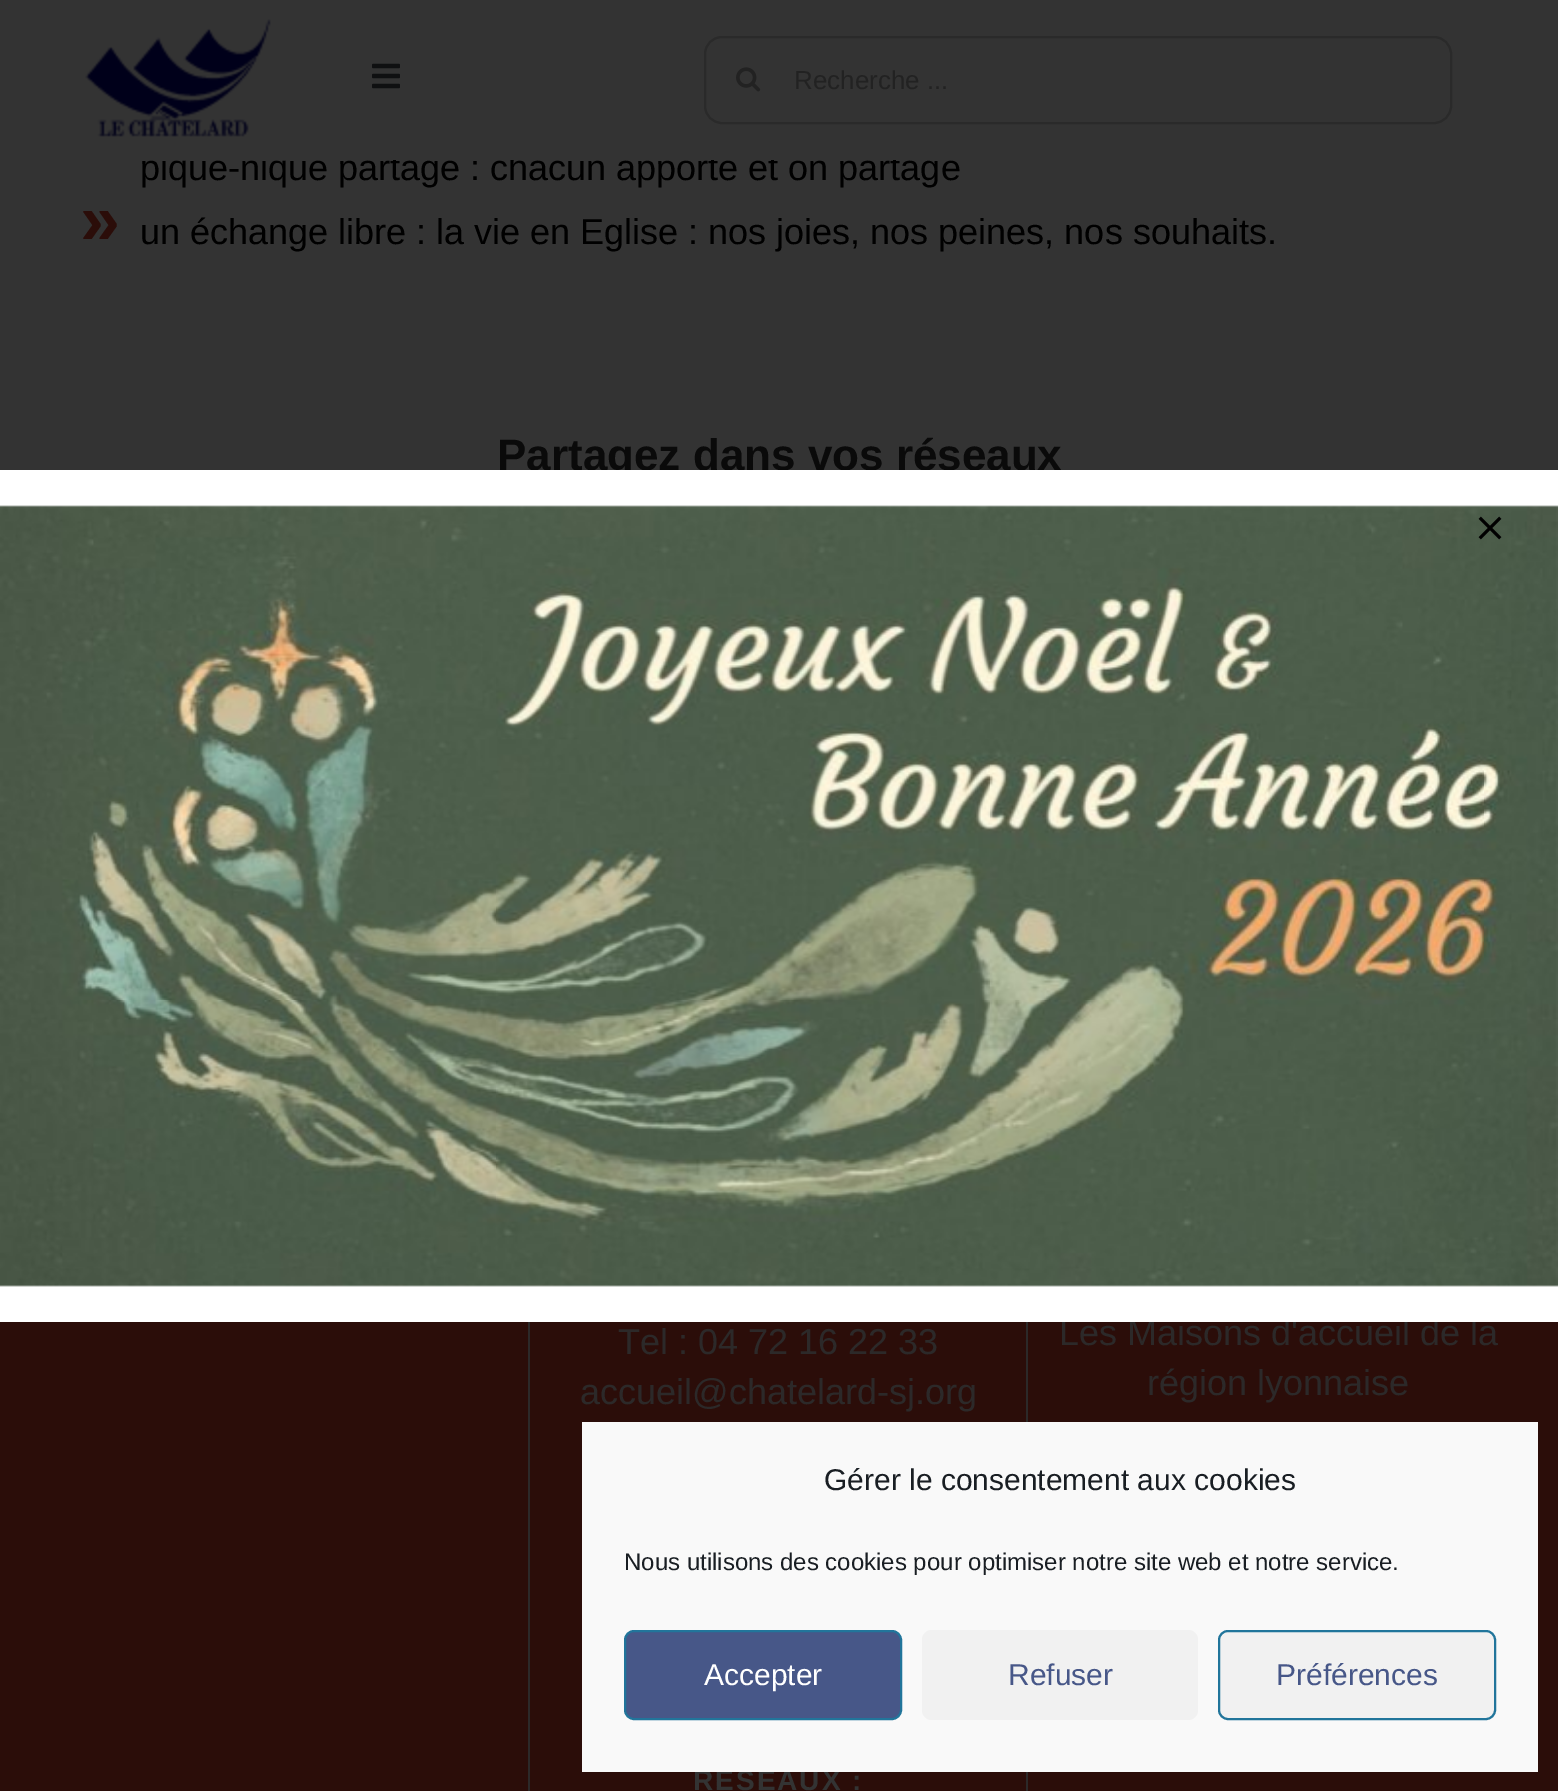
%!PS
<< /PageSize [1558 1791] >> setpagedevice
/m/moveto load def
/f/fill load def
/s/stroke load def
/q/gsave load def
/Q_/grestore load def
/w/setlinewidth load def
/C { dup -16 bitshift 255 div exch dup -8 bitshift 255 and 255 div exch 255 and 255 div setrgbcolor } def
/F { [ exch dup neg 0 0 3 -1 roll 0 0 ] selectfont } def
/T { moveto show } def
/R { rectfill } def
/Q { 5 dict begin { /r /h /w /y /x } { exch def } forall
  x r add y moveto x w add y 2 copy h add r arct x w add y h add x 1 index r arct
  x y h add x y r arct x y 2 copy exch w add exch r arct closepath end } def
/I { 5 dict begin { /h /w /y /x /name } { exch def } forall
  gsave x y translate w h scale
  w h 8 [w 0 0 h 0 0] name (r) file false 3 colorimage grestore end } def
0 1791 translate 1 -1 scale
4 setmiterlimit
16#333333 C
0 0 1558 1791 R
/LiberationSans-Regular 36 F
16#000000 C
(pique-nique partagé : chacun apporte et on partage) 140 180 T
16#333333 C
162 153 735 7 R
(1.rgb) 85 19 186 118 I
(2.rgb) 372 63 28 26 I
16#2A2A2A C
2 w
705 37 746 86 17 Q s
(3.rgb) 736 67 25 25 I
/LiberationSans-Regular 26 F
16#222222 C
(Recherche ...) 794 89 T
/LiberationSans-Bold 72 F
16#2B0D09 C
(») 80 244 T
/LiberationSans-Regular 36 F
16#000000 C
(un échange libre : la vie en Eglise : nos joies, nos peines, nos souhaits.) 140 244 T
/LiberationSans-Bold 44 F
16#0A0A0A C
(Partagez dans vos réseaux) 497 470 T
16#2B0D09 C
0 1322 1558 469 R
16#2C2929 C
528 1322 2 469 R
1026 1322 2 469 R
/LiberationSans-Regular 36 F
(Tel : 04 72 16 22 33) 618 1354 T
(accueil@chatelard-sj.org) 580 1404 T
/LiberationSans-Bold 28 F
16#333333 C
693 1790 m 2 0 (RÉSEAUX :) ashow
/LiberationSans-Regular 36 F
16#2C2929 C
(Les Maisons d'accueil de la) 1059 1345 T
(région lyonnaise) 1147 1395 T
16#FFFFFF C
0 470 1558 852 R
(4.rgb) 0 505 1558 782 I
(5.rgb) 1478 516 24 24 I
16#F9F9F9 C
582 1422 956 350 R
/LiberationSans-Regular 30 F
16#191E23 C
(Gérer le consentement aux cookies) 824 1490 T
/LiberationSans-Regular 24 F
(Nous utilisons des cookies pour optimiser notre site web et notre service.) 624 1570 T
16#475788 C
625 1631 276 88 9 Q q f Q_
16#21759B C
s
/LiberationSans-Regular 30 F
16#FFFFFF C
(Accepter) 704 1685 T
16#F1F1F1 C
922 1630 276 90 10 Q f
16#475788 C
(Refuser) 1008 1685 T
16#F1F1F1 C
1219 1631 276 88 9 Q q f Q_
16#21759B C
s
16#475788 C
(Préférences) 1276 1685 T
showpage
